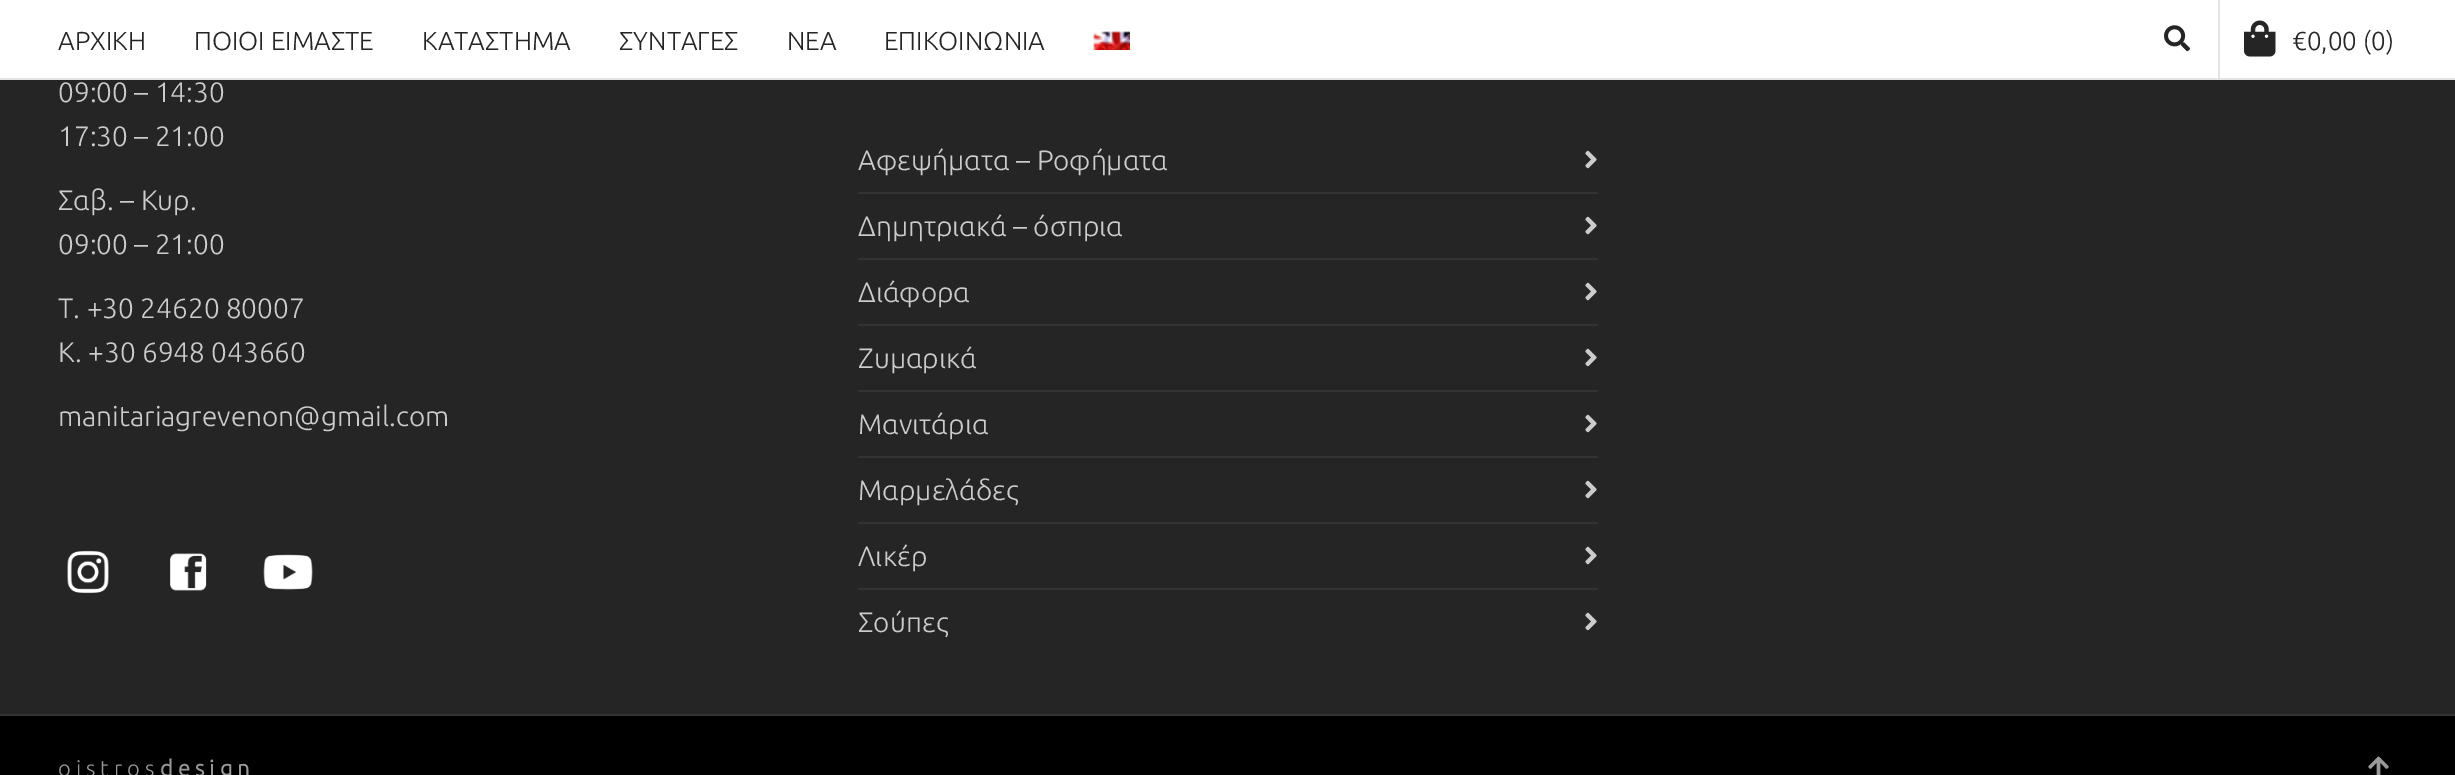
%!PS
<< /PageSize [2455 775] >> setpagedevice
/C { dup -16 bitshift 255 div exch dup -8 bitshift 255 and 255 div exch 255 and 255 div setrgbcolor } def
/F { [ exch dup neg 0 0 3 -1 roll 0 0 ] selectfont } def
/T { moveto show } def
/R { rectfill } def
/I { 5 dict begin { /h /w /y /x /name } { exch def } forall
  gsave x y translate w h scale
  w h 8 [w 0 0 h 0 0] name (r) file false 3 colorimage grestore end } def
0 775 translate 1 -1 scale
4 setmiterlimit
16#252525 C
0 0 2455 775 R
16#FFFFFF C
0 0 2455 78 R
16#E4E4E4 C
0 78 2455 2 R
/Ubuntu-Light 26 F
16#252525 C
(ΑΡΧΙΚΗ) 58 50 T
(ΠΟΙΟΙ ΕΙΜΑΣΤΕ) 194 50 T
(ΚΑΤΑΣΤΗΜΑ) 422 50 T
(ΣΥΝΤΑΓΕΣ) 619 50 T
(ΝΕΑ) 787 50 T
(ΕΠΙΚΟΙΝΩΝΙΑ) 884 50 T
(1.rgb) 1093 31 37 19 I
(2.rgb) 2164 25 26 27 I
16#E4E4E4 C
2218 0 2 78 R
(3.rgb) 2244 20 32 37 I
16#252525 C
(€0,00 \(0\)) 2292 50 T
/Ubuntu-Light 28 F
16#CCCCCC C
(09:00 – 14:30) 58 102 T
(17:30 – 21:00) 58 146 T
(Σαβ. – Κυρ.) 58 210 T
(09:00 – 21:00) 58 254 T
(Τ. +30 24620 80007) 58 318 T
(Κ. +30 6948 043660) 58 362 T
(manitariagrevenon@gmail.com) 58 426 T
(4.rgb) 67 550 42 44 I
(5.rgb) 170 553 37 38 I
(6.rgb) 263 554 50 36 I
(Αφεψήματα – Ροφήματα) 858 170 T
(7.rgb) 1585 150 12 19 I
16#333333 C
858 192 740 2 R
16#CCCCCC C
(Δημητριακά – όσπρια) 858 236 T
(7.rgb) 1585 216 12 19 I
16#333333 C
858 258 740 2 R
16#CCCCCC C
(Διάφορα) 858 302 T
(7.rgb) 1585 282 12 19 I
16#333333 C
858 324 740 2 R
16#CCCCCC C
(Ζυμαρικά) 858 368 T
(7.rgb) 1585 348 12 19 I
16#333333 C
858 390 740 2 R
16#CCCCCC C
(Μανιτάρια) 858 434 T
(7.rgb) 1585 414 12 19 I
16#333333 C
858 456 740 2 R
16#CCCCCC C
(Μαρμελάδες) 858 500 T
(7.rgb) 1585 480 12 19 I
16#333333 C
858 522 740 2 R
16#CCCCCC C
(Λικέρ) 858 566 T
(7.rgb) 1585 546 12 19 I
16#333333 C
858 588 740 2 R
16#CCCCCC C
(Σούπες) 858 632 T
(7.rgb) 1585 612 12 19 I
16#000000 C
0 716 2455 59 R
16#333333 C
0 714 2455 2 R
/Ubuntu-Light 22 F
16#999999 C
(o i s t r o s) 58 776 T
/Ubuntu-Bold 22 F
(d e s i g n) 160 776 T
(8.rgb) 2368 756 21 19 I
showpage
